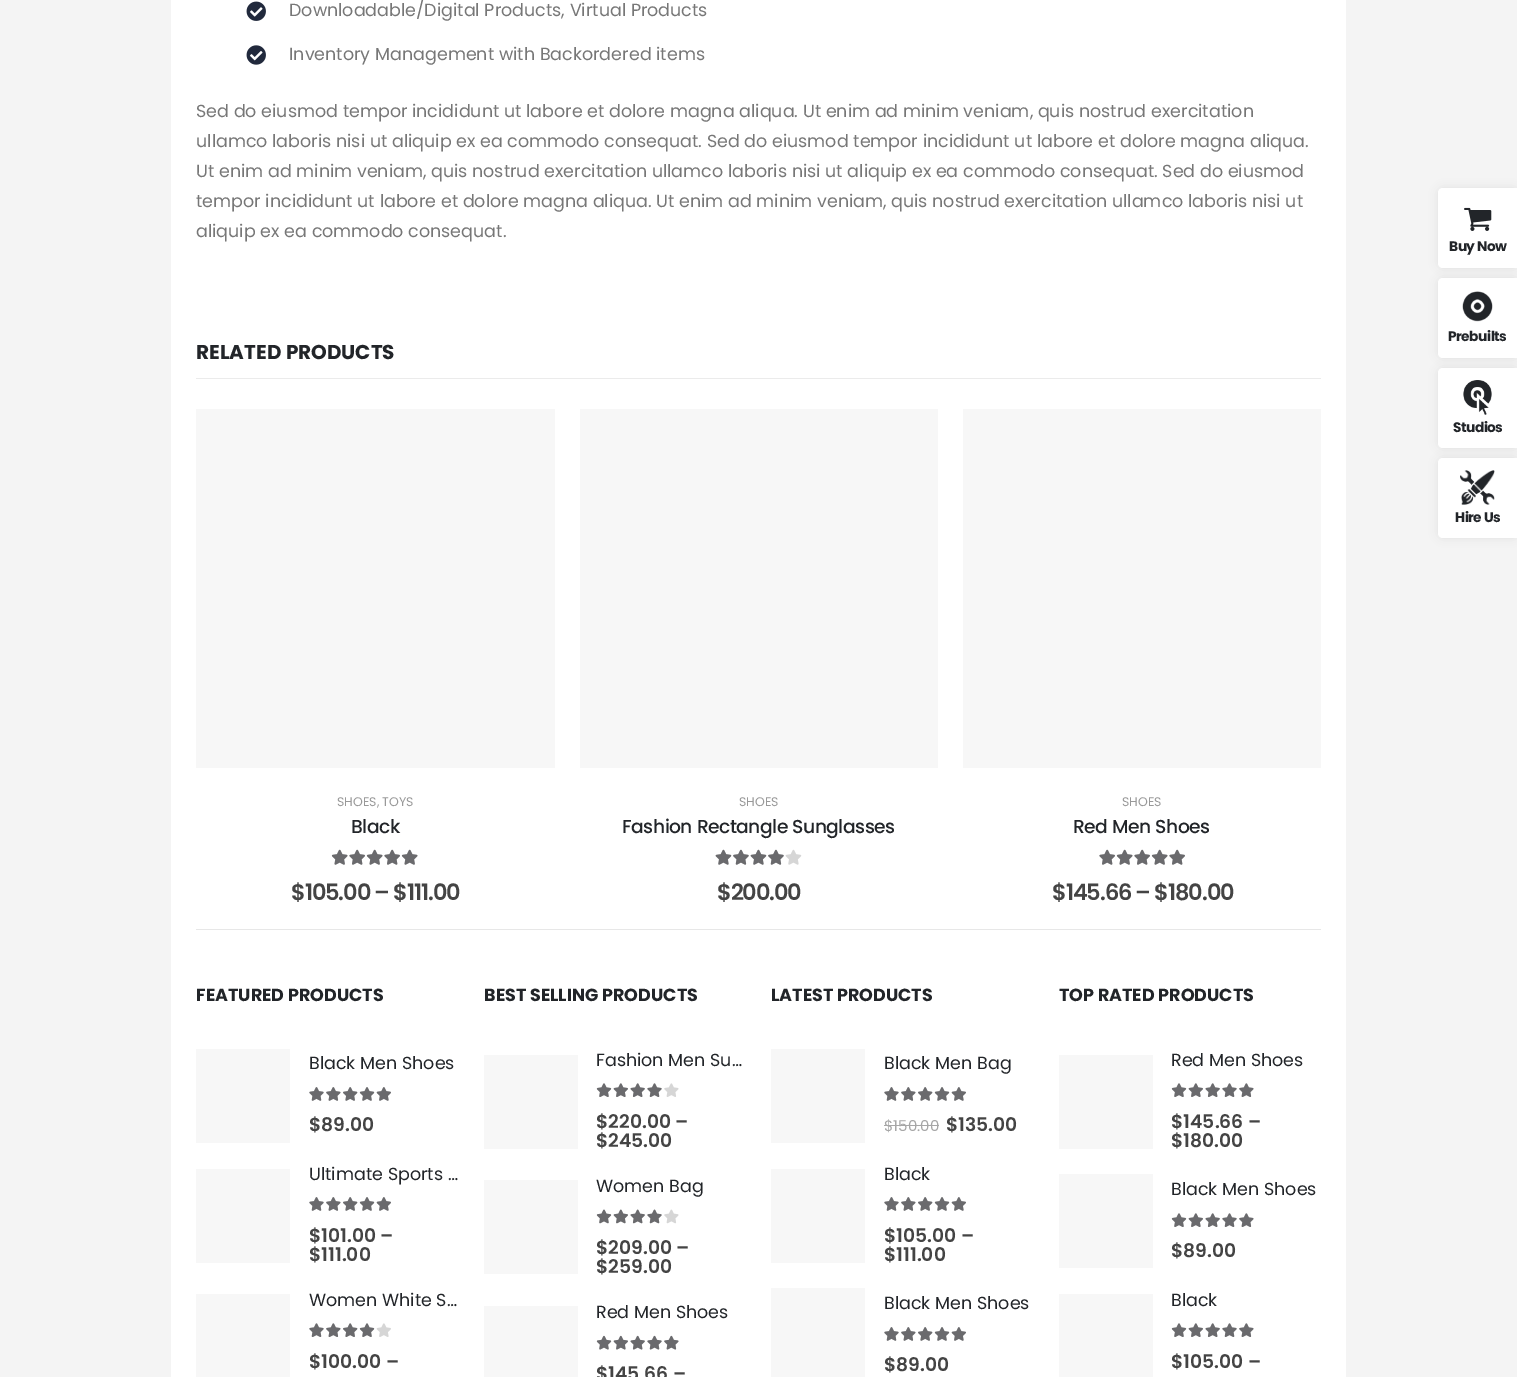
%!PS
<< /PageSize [1517 1377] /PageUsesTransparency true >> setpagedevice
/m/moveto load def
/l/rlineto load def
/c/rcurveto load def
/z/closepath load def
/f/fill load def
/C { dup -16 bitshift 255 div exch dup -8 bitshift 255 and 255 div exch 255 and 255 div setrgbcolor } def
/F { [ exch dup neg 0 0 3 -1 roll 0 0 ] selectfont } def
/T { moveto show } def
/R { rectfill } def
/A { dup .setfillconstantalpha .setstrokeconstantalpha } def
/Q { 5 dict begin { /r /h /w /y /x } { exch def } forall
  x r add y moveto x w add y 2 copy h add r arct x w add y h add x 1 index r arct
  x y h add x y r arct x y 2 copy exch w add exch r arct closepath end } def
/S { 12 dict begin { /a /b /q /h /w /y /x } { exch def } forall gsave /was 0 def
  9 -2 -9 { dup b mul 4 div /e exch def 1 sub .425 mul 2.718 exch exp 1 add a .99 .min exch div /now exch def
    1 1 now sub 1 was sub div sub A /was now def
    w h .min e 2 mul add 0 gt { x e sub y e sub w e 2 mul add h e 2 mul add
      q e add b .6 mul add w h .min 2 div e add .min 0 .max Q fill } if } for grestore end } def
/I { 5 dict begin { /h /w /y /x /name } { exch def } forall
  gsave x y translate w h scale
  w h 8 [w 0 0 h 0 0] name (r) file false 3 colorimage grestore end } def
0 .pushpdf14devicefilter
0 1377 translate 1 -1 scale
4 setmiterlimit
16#F4F4F4 C
0 0 1517 1377 R
16#FFFFFF C
171 0 1175 1377 R
(1.rgb) 246 1 20 20 I
/Poppins-Regular 17.5 F
16#777777 C
(Downloadable/Digital Products, Virtual Products) 289 16 T
(2.rgb) 246 45 20 20 I
(Inventory Management with Backordered items) 289 60 T
(Sed do eiusmod tempor incididunt ut labore et dolore magna aliqua. Ut enim ad minim veniam, quis nostrud exercitation) 196 117 T
(ullamco laboris nisi ut aliquip ex ea commodo consequat. Sed do eiusmod tempor incididunt ut labore et dolore magna aliqua.) 196 147 T
(Ut enim ad minim veniam, quis nostrud exercitation ullamco laboris nisi ut aliquip ex ea commodo consequat. Sed do eiusmod) 196 177 T
(tempor incididunt ut labore et dolore magna aliqua. Ut enim ad minim veniam, quis nostrud exercitation ullamco laboris nisi ut) 196 207 T
(aliquip ex ea commodo consequat.) 196 237 T
16#EBEBEB C
196 378 1125 1 R
/Poppins-Bold 20 F
16#222529 C
(RELATED PRODUCTS) 196 359 T
16#F7F7F7 C
196 409 359 359 R
/Poppins-Regular 12.5 F
16#999999 C
(SHOES, TOYS) 337 806 T
/Poppins-Medium 18.75 F
16#222529 C
351 833 m -.5 0 (Black) ashow
(4.rgb) 332 849 86 16 I
(3.rgb) 331 849 87 16 I
/Poppins-SemiBold 22.5 F
16#444444 C
291 900 m -1.1 0 ($105.00 – $111.00) ashow
16#F7F7F7 C
580 409 358 359 R
/Poppins-Regular 12.5 F
16#999999 C
(SHOES) 739 806 T
/Poppins-Medium 18.75 F
16#222529 C
622 833 m -.5 0 (Fashion Rectangle Sunglasses) ashow
(5.rgb) 715 849 87 16 I
(6.rgb) 715 849 69 16 I
/Poppins-SemiBold 22.5 F
16#444444 C
717 900 m -1.1 0 ($200.00) ashow
16#F7F7F7 C
963 409 358 359 R
/Poppins-Regular 12.5 F
16#999999 C
(SHOES) 1122 806 T
/Poppins-Medium 18.75 F
16#222529 C
1073 833 m -.5 0 (Red Men Shoes) ashow
(7.rgb) 1099 849 86 16 I
(8.rgb) 1099 849 86 16 I
/Poppins-SemiBold 22.5 F
16#444444 C
1052 900 m -1.1 0 ($145.66 – $180.00) ashow
16#E7E7E7 C
196 929 1125 1 R
/Poppins-Bold 17.5 F
16#222529 C
(FEATURED PRODUCTS) 196 1001 T
16#F7F7F7 C
196 1049 94 94 R
/Poppins-Regular 17.5 F
16#222529 C
(Black Men Shoes) 309 1069 T
(9.rgb) 309 1087 82 14 I
(10.rgb) 309 1087 82 14 I
/Poppins-SemiBold 18.75 F
16#444444 C
($89.00) 309 1131 T
16#F7F7F7 C
196 1169 94 94 R
/Poppins-Regular 17.5 F
16#222529 C
(Ultimate Sports …) 309 1180 T
(9.rgb) 309 1197 82 14 I
(10.rgb) 309 1197 82 14 I
/Poppins-SemiBold 18.75 F
16#444444 C
($101.00 –) 309 1242 T
($111.00) 309 1261 T
16#F7F7F7 C
196 1294 94 83 R
/Poppins-Regular 17.5 F
16#222529 C
(Women White S…) 309 1306 T
(11.rgb) 309 1323 82 14 I
(12.rgb) 309 1323 66 14 I
/Poppins-SemiBold 18.75 F
16#444444 C
($100.00 –) 309 1368 T
/Poppins-Bold 17.5 F
16#222529 C
(BEST SELLING PRODUCTS) 484 1001 T
16#F7F7F7 C
484 1055 94 94 R
/Poppins-Regular 17.5 F
16#222529 C
(Fashion Men Su…) 596 1066 T
(14.rgb) 597 1083 82 14 I
(13.rgb) 596 1083 66 14 I
/Poppins-SemiBold 18.75 F
16#444444 C
($220.00 –) 596 1128 T
($245.00) 596 1147 T
16#F7F7F7 C
484 1180 94 94 R
/Poppins-Regular 17.5 F
16#222529 C
(Women Bag) 596 1192 T
(16.rgb) 597 1209 82 15 I
(15.rgb) 596 1209 66 15 I
/Poppins-SemiBold 18.75 F
16#444444 C
($209.00 –) 596 1254 T
($259.00) 596 1273 T
16#F7F7F7 C
484 1306 94 71 R
/Poppins-Regular 17.5 F
16#222529 C
(Red Men Shoes) 596 1318 T
(18.rgb) 597 1336 82 14 I
(17.rgb) 596 1335 83 15 I
/Poppins-SemiBold 18.75 F
16#444444 C
($145.66 –) 596 1380 T
/Poppins-Bold 17.5 F
16#222529 C
(LATEST PRODUCTS) 771 1001 T
16#F7F7F7 C
771 1049 94 94 R
/Poppins-Regular 17.5 F
16#222529 C
(Black Men Bag) 884 1069 T
(9.rgb) 884 1087 82 14 I
(10.rgb) 884 1087 82 14 I
/Poppins-Regular 15 F
16#A7A7A7 C
($150.00) 884 1131 T
884 1125 55 1 R
/Poppins-SemiBold 18.75 F
16#444444 C
($135.00) 946 1131 T
16#F7F7F7 C
771 1169 94 94 R
/Poppins-Regular 17.5 F
16#222529 C
(Black) 884 1180 T
(9.rgb) 884 1197 82 14 I
(10.rgb) 884 1197 82 14 I
/Poppins-SemiBold 18.75 F
16#444444 C
($105.00 –) 884 1242 T
($111.00) 884 1261 T
16#F7F7F7 C
771 1288 94 89 R
/Poppins-Regular 17.5 F
16#222529 C
(Black Men Shoes) 884 1309 T
(9.rgb) 884 1327 82 14 I
(10.rgb) 884 1327 82 14 I
/Poppins-SemiBold 18.75 F
16#444444 C
($89.00) 884 1371 T
/Poppins-Bold 17.5 F
16#222529 C
(TOP RATED PRODUCTS) 1059 1001 T
16#F7F7F7 C
1059 1055 94 94 R
/Poppins-Regular 17.5 F
16#222529 C
(Red Men Shoes) 1171 1066 T
(14.rgb) 1172 1083 82 14 I
(19.rgb) 1171 1083 83 14 I
/Poppins-SemiBold 18.75 F
16#444444 C
($145.66 –) 1171 1128 T
($180.00) 1171 1147 T
16#F7F7F7 C
1059 1174 94 94 R
/Poppins-Regular 17.5 F
16#222529 C
(Black Men Shoes) 1171 1195 T
(14.rgb) 1172 1213 82 14 I
(19.rgb) 1171 1213 83 14 I
/Poppins-SemiBold 18.75 F
16#444444 C
($89.00) 1171 1257 T
16#F7F7F7 C
1059 1294 94 83 R
/Poppins-Regular 17.5 F
16#222529 C
(Black) 1171 1306 T
(14.rgb) 1172 1323 82 14 I
(19.rgb) 1171 1323 83 14 I
/Poppins-SemiBold 18.75 F
16#444444 C
($105.00 –) 1171 1368 T
16#000000 C
1438 188 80 80 5 4.5 .07 S
16#FFFFFF C
1443 188 m 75 0 l 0 80 l -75 0 l -3 0 -5 -2 -5 -5 c 0 -70 l 0 -3 2 -5 5 -5 c z f
(20.rgb) 1464 207 28 24 I
/Poppins-Bold 13.75 F
16#222529 C
1449 251 m -.5 0 (Buy Now) ashow
16#000000 C
1438 278 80 80 5 4.5 .07 S
16#FFFFFF C
1443 278 m 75 0 l 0 80 l -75 0 l -3 0 -5 -2 -5 -5 c 0 -70 l 0 -3 2 -5 5 -5 c z f
(21.rgb) 1462 291 31 31 I
16#222529 C
1448 341 m -.5 0 (Prebuilts) ashow
16#000000 C
1438 368 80 80 5 4.5 .07 S
16#FFFFFF C
1443 368 m 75 0 l 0 80 l -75 0 l -3 0 -5 -2 -5 -5 c 0 -70 l 0 -3 2 -5 5 -5 c z f
(22.rgb) 1463 380 29 35 I
16#222529 C
1453 432 m -.5 0 (Studios) ashow
16#000000 C
1438 458 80 80 5 4.5 .07 S
16#FFFFFF C
1443 458 m 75 0 l 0 80 l -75 0 l -3 0 -5 -2 -5 -5 c 0 -70 l 0 -3 2 -5 5 -5 c z f
(23.rgb) 1460 470 35 35 I
16#222529 C
1455 522 m -.5 0 (Hire Us) ashow
.poppdf14devicefilter showpage
